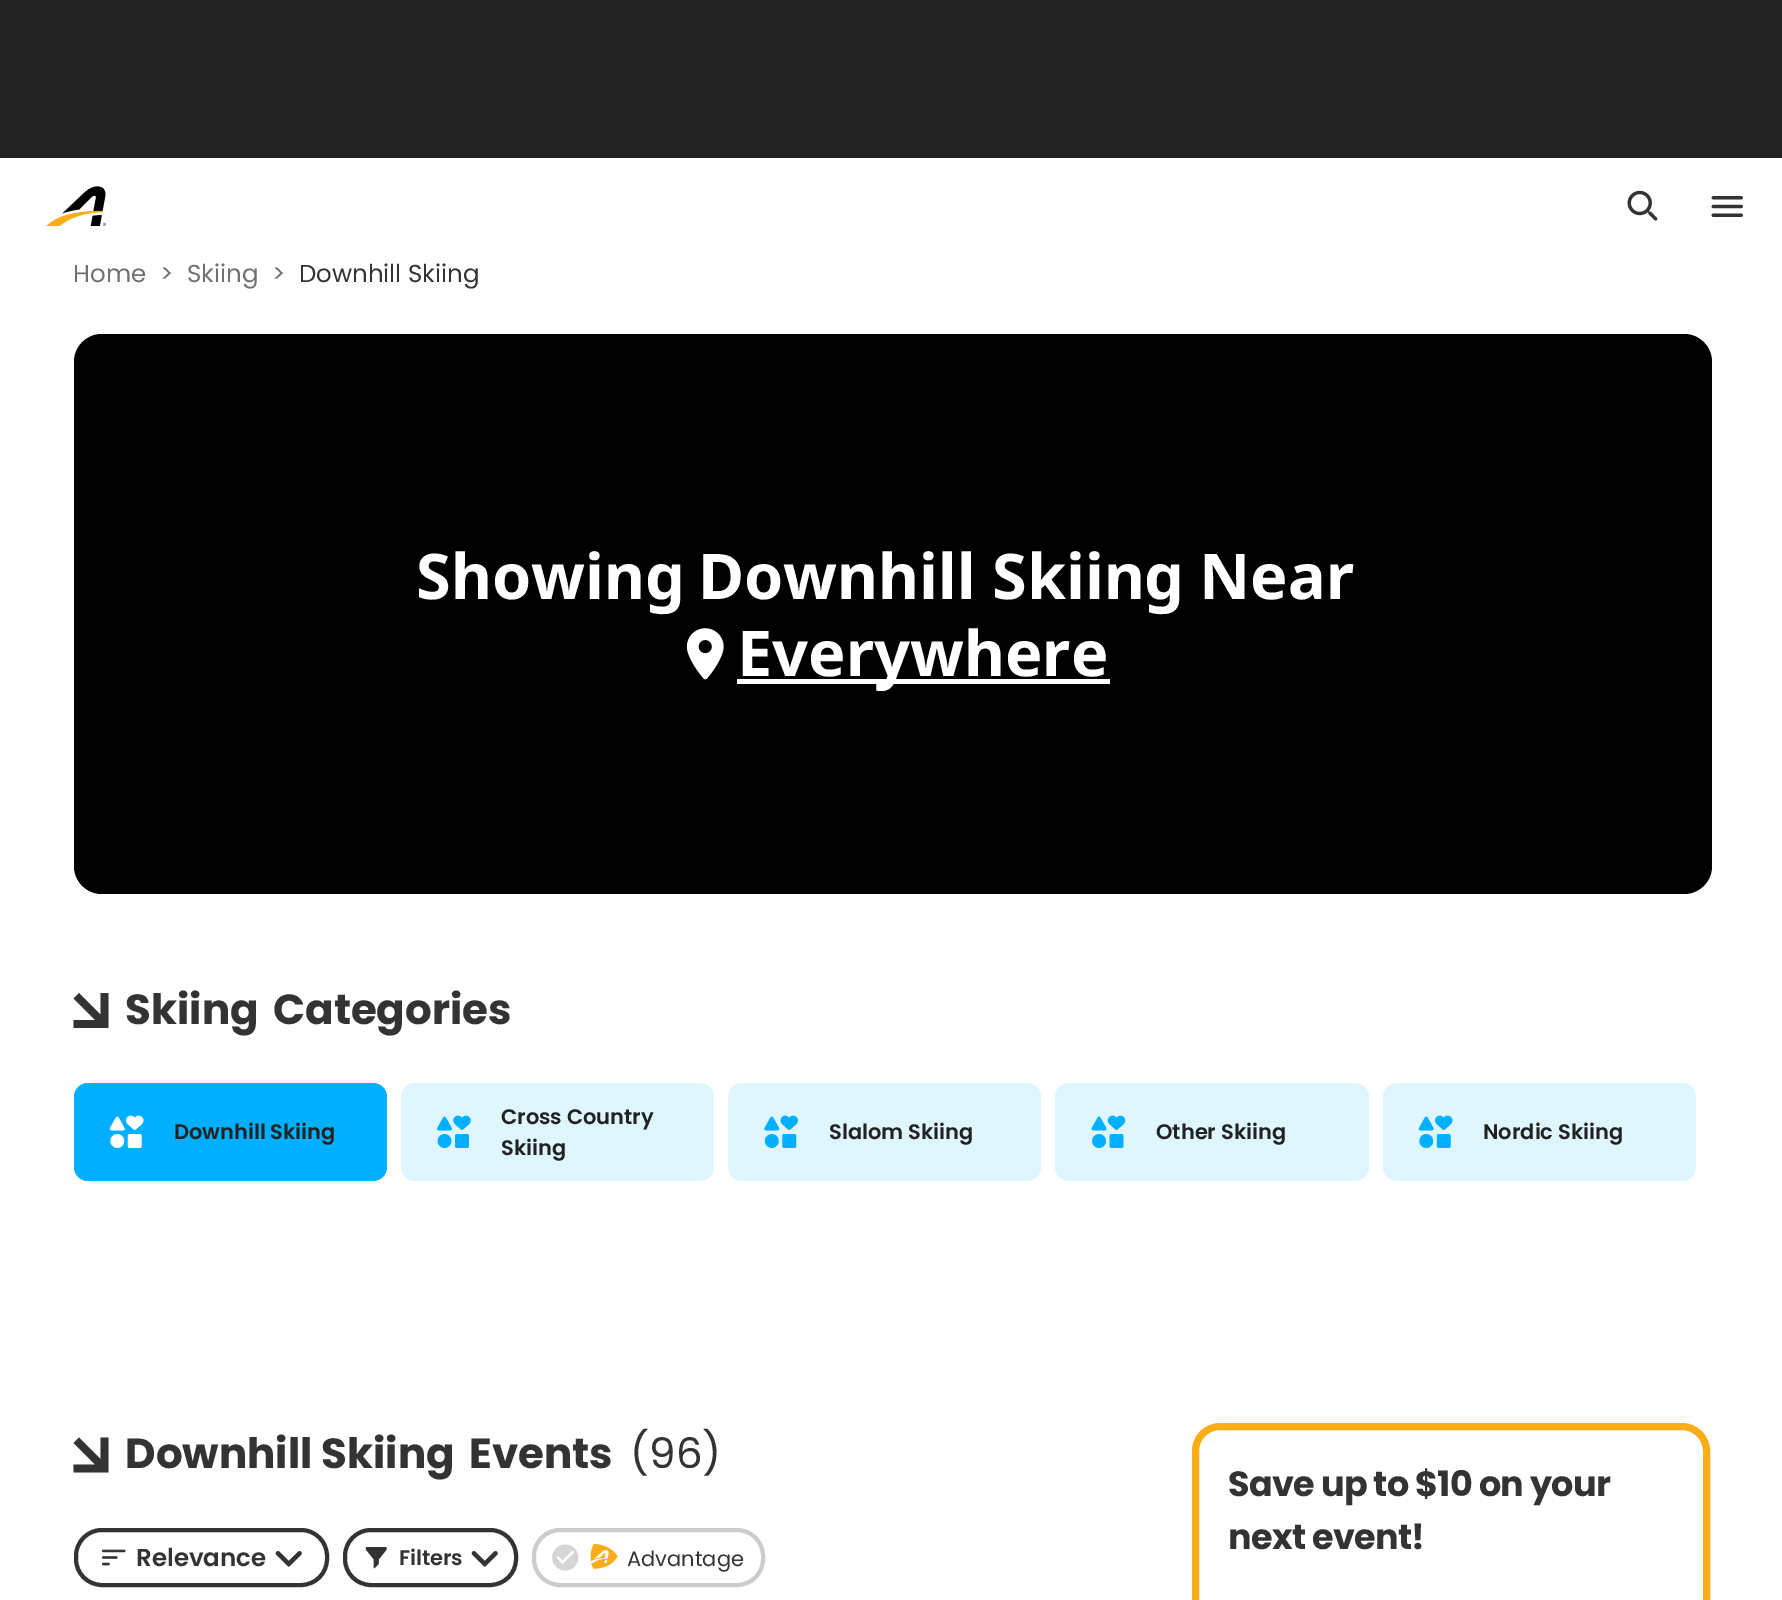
%!PS
<< /PageSize [1782 1600] >> setpagedevice
/m/moveto load def
/l/rlineto load def
/z/closepath load def
/f/fill load def
/s/stroke load def
/q/gsave load def
/Q_/grestore load def
/w/setlinewidth load def
/C { dup -16 bitshift 255 div exch dup -8 bitshift 255 and 255 div exch 255 and 255 div setrgbcolor } def
/F { [ exch dup neg 0 0 3 -1 roll 0 0 ] selectfont } def
/T { moveto show } def
/R { rectfill } def
/Q { 5 dict begin { /r /h /w /y /x } { exch def } forall
  x r add y moveto x w add y 2 copy h add r arct x w add y h add x 1 index r arct
  x y h add x y r arct x y 2 copy exch w add exch r arct closepath end } def
/I { 5 dict begin { /h /w /y /x /name } { exch def } forall
  gsave x y translate w h scale
  w h 8 [w 0 0 h 0 0] name (r) file false 3 colorimage grestore end } def
0 1600 translate 1 -1 scale
4 setmiterlimit
16#FFFFFF C
0 0 1782 1600 R
16#222222 C
0 0 1782 158 R
(1.rgb) 46 186 60 40 I
(2.rgb) 1627 190 31 31 I
(3.rgb) 1711 196 32 21 I
/Poppins-Regular 24.5 F
16#707070 C
(Home) 73 282 T
(>) 160 282 T
(Skiing) 187 282 T
(>) 272 282 T
16#333333 C
(Downhill Skiing) 299 282 T
16#000000 C
74 334 1638 560 28 Q f
/NotoSans-Bold 63 F
16#FFFFFF C
(Showing) 416 599 T
(Downhill Skiing) 698 599 T
(Near) 1199 599 T
(4.rgb) 686 628 38 52 I
737 679 373 5 R
q
154 614 1475 77 rectclip
(Everywhere) 737 676 T
Q_
16#333333 C
108.5 993 m 0 35 l -35 0 l 0 -8 l 21.5 0 l -21.5 -21.5 l 5.5 -5.5 l 21.5 21.5 l 0 -21.5 l z f
/Poppins-Bold 42 F
(Skiing) 125 1024 T
(Categories) 273 1024 T
16#00B0FF C
74 1083 313 98 14 Q f
(5.rgb) 109 1115 35 33 I
/Poppins-SemiBold 21 F
16#222222 C
(Downhill Skiing) 174 1139 T
16#E0F6FF C
401 1083 313 98 14 Q f
(6.rgb) 437 1115 34 33 I
16#222222 C
(Cross Country) 501 1124 T
(Skiing) 501 1155 T
16#E0F6FF C
728 1083 313 98 14 Q f
(7.rgb) 764 1115 34 33 I
16#222222 C
(Slalom Skiing) 829 1139 T
16#E0F6FF C
1055 1083 314 98 14 Q f
(8.rgb) 1091 1115 35 33 I
16#222222 C
(Other Skiing) 1156 1139 T
16#E0F6FF C
1383 1083 313 98 14 Q f
(9.rgb) 1418 1115 35 33 I
16#222222 C
(Nordic Skiing) 1483 1139 T
16#333333 C
108.5 1437.5 m 0 35 l -35 0 l 0 -8 l 21.5 0 l -21.5 -21.5 l 5.5 -5.5 l 21.5 21.5 l 0 -21.5 l z f
/Poppins-Bold 42 F
(Downhill Skiing) 125 1468 T
(Events) 469 1468 T
/Poppins-Regular 42 F
(\(96\)) 630 1468 T
4 w
76 1530 251 55 26 Q s
(10.rgb) 102 1549 24 17 I
/Poppins-SemiBold 24.5 F
(Relevance) 136 1566 T
(11.rgb) 275 1551 27 16 I
345 1530 171 55 26 Q s
(12.rgb) 365 1547 22 22 I
/Poppins-SemiBold 21 F
(Filters) 399 1565 T
(11.rgb) 471 1551 27 16 I
16#CCCCCC C
534 1530 229 55 26 Q s
(13.rgb) 552 1544 27 27 I
(14.rgb) 590 1544 28 25 I
/Poppins-Regular 21 F
16#333333 C
(Advantage) 627 1566 T
16#FBAD18 C
7 w
1195.5 1426.5 511 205 24.5 Q s
/Poppins-Bold 35 F
16#333333 C
1228 1496 m -.7 0 (Save up to $10 on your) ashow
1228 1549 m -.7 0 (next event!) ashow
showpage
